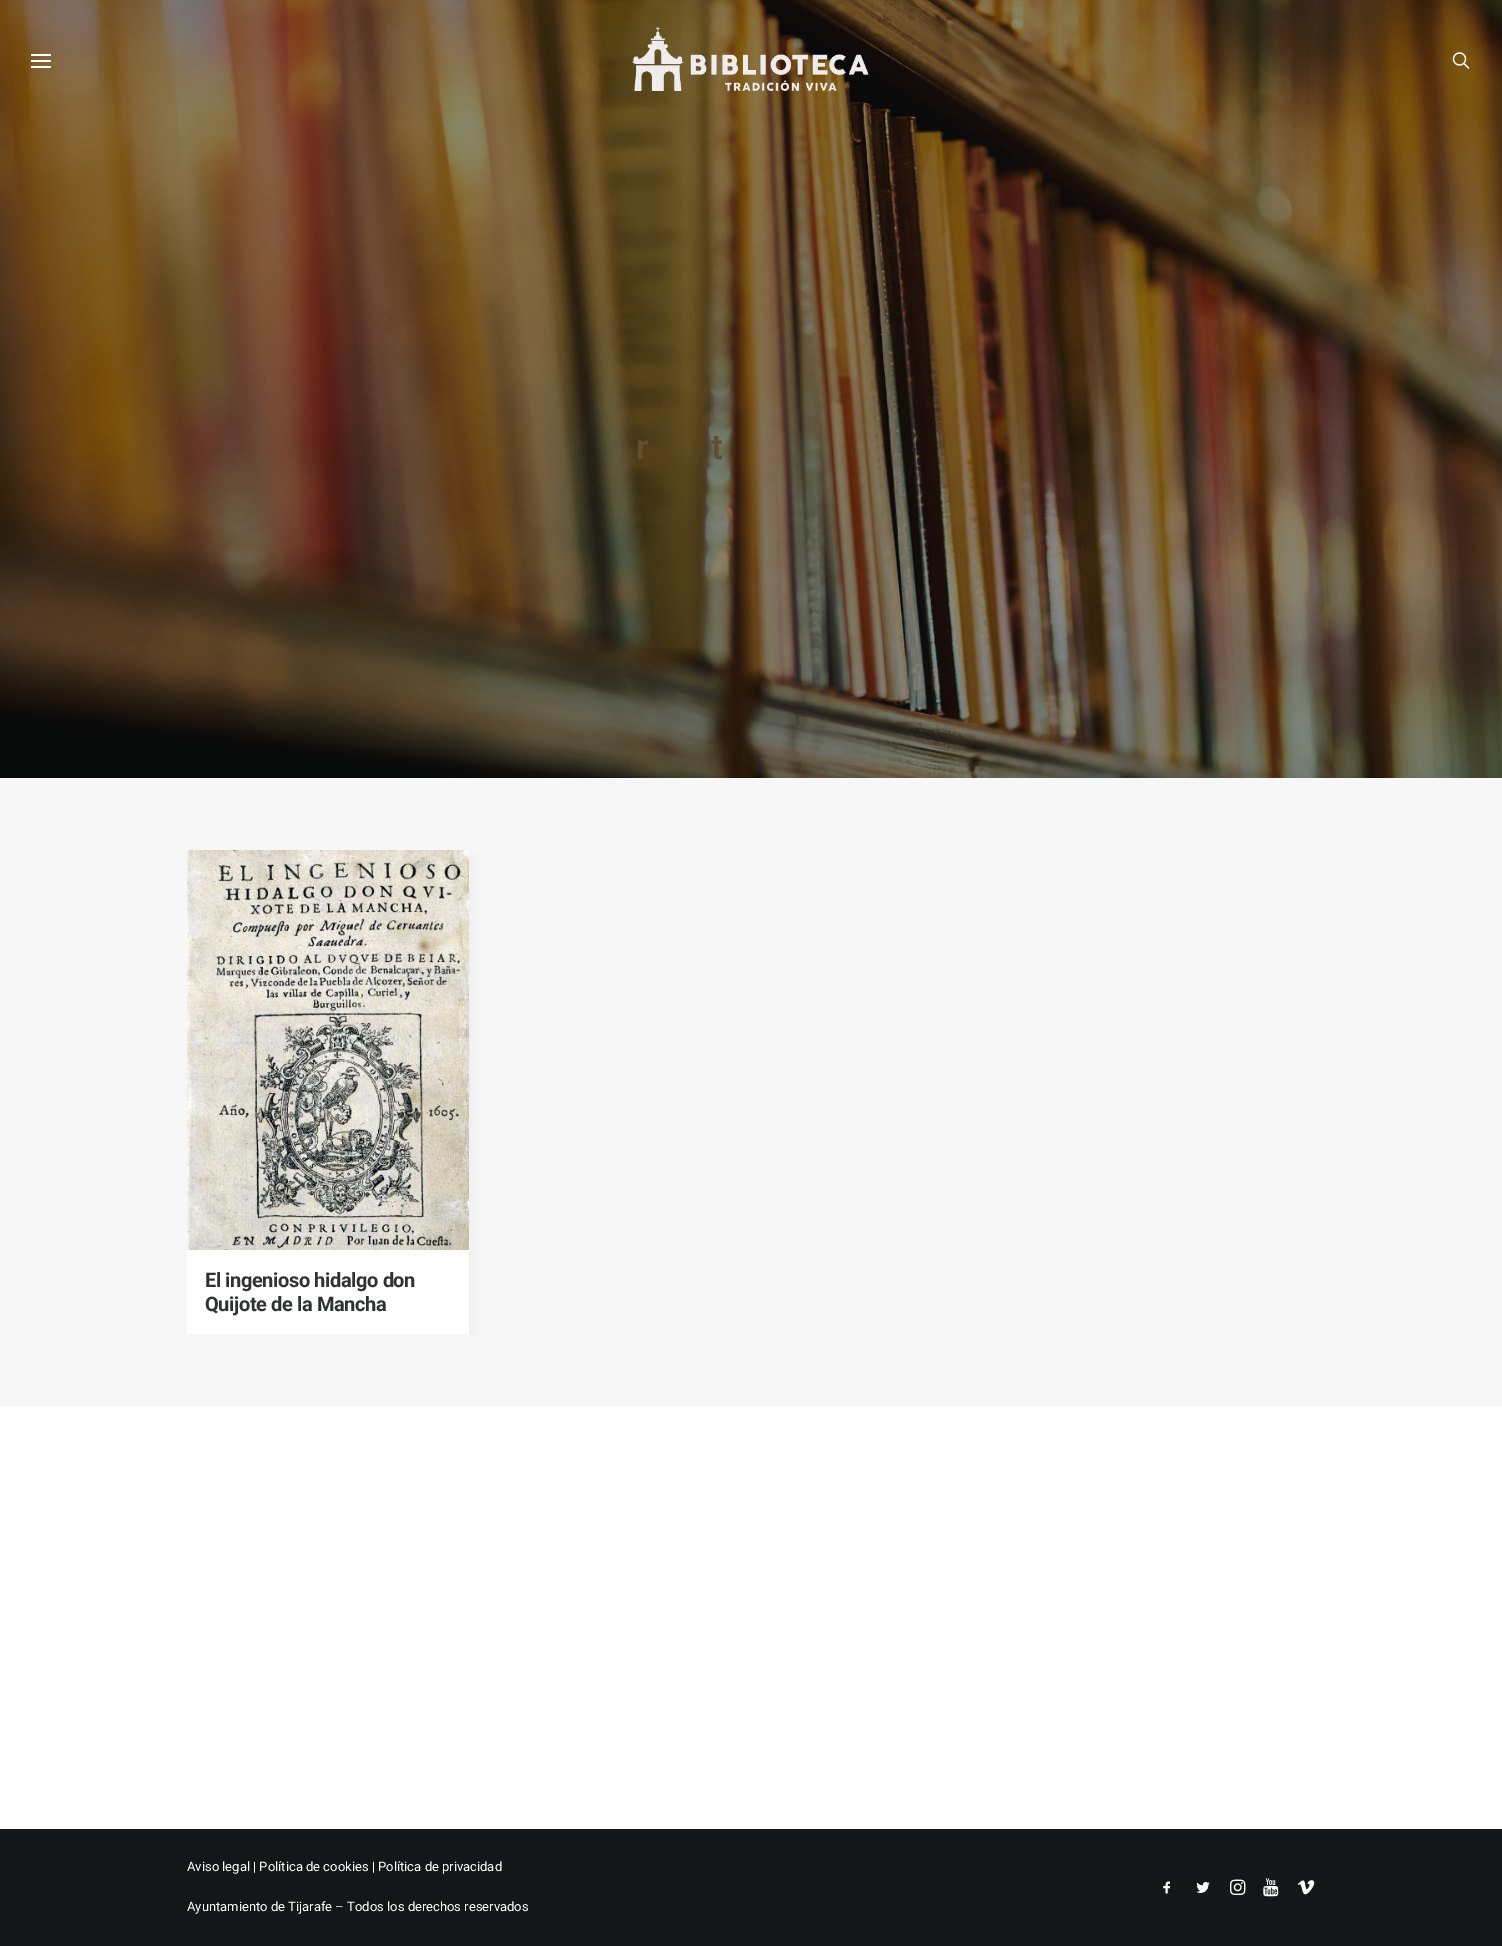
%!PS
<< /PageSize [1502 1946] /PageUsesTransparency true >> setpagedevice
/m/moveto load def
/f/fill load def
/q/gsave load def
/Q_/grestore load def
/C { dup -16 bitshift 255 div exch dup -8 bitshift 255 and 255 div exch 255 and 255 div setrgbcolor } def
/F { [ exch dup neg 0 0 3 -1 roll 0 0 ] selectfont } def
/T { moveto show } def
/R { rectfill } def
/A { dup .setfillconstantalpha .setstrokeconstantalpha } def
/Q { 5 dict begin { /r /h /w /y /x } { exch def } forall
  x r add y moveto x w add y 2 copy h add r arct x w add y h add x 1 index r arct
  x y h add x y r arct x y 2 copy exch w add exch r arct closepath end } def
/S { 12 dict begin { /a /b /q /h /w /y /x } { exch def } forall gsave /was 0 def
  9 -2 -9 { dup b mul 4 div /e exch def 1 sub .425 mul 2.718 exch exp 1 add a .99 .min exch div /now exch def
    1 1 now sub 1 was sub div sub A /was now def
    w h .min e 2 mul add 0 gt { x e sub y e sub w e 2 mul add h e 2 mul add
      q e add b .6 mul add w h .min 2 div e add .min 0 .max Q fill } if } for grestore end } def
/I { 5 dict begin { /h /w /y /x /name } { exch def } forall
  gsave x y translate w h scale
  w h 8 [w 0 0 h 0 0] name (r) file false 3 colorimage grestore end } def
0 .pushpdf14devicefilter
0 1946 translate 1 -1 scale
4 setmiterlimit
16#141618 C
0 0 1502 1946 R
(3.rgb) 0 0 1502 778 I
16#FFFFFF C
31 60 20 2 1 Q f
31 54 20 2 1 Q f
31 66 20 2 1 Q f
(1.rgb) 632 27 237 64 I
(2.rgb) 1452 52 18 17 I
/Roboto-SemiBold 35 F
16#604E31 C
636 459 m -1 0 (r) ashow
711 459 m -1 0 (t) ashow
16#FFFFFF C
0 1406 1502 423 R
16#F7F7F7 C
0 778 1502 628 R
q
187 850 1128 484 rectclip
16#000000 C
187 855 282 484 2 7.5 .05 S
Q_
16#FFFFFF C
187 850 282 484 2 Q f
(4.rgb) 187 850 282 400 I
/Roboto-Bold 20 F
16#303133 C
205 1287 m -.4 0 (El ingenioso hidalgo don) ashow
205 1311 m -.4 0 (Quijote de la Mancha) ashow
/Roboto-Regular 13 F
16#FFFFFF C
(Aviso legal | Política de cookies | Política de privacidad) 187 1871 T
(Ayuntamiento de Tijarafe – Todos los derechos reservados) 187 1911 T
(5.rgb) 1163 1881 7 13 I
(6.rgb) 1196 1882 14 11 I
(7.rgb) 1230 1879 16 16 I
(8.rgb) 1263 1878 16 19 I
(9.rgb) 1297 1880 18 15 I
.poppdf14devicefilter showpage
